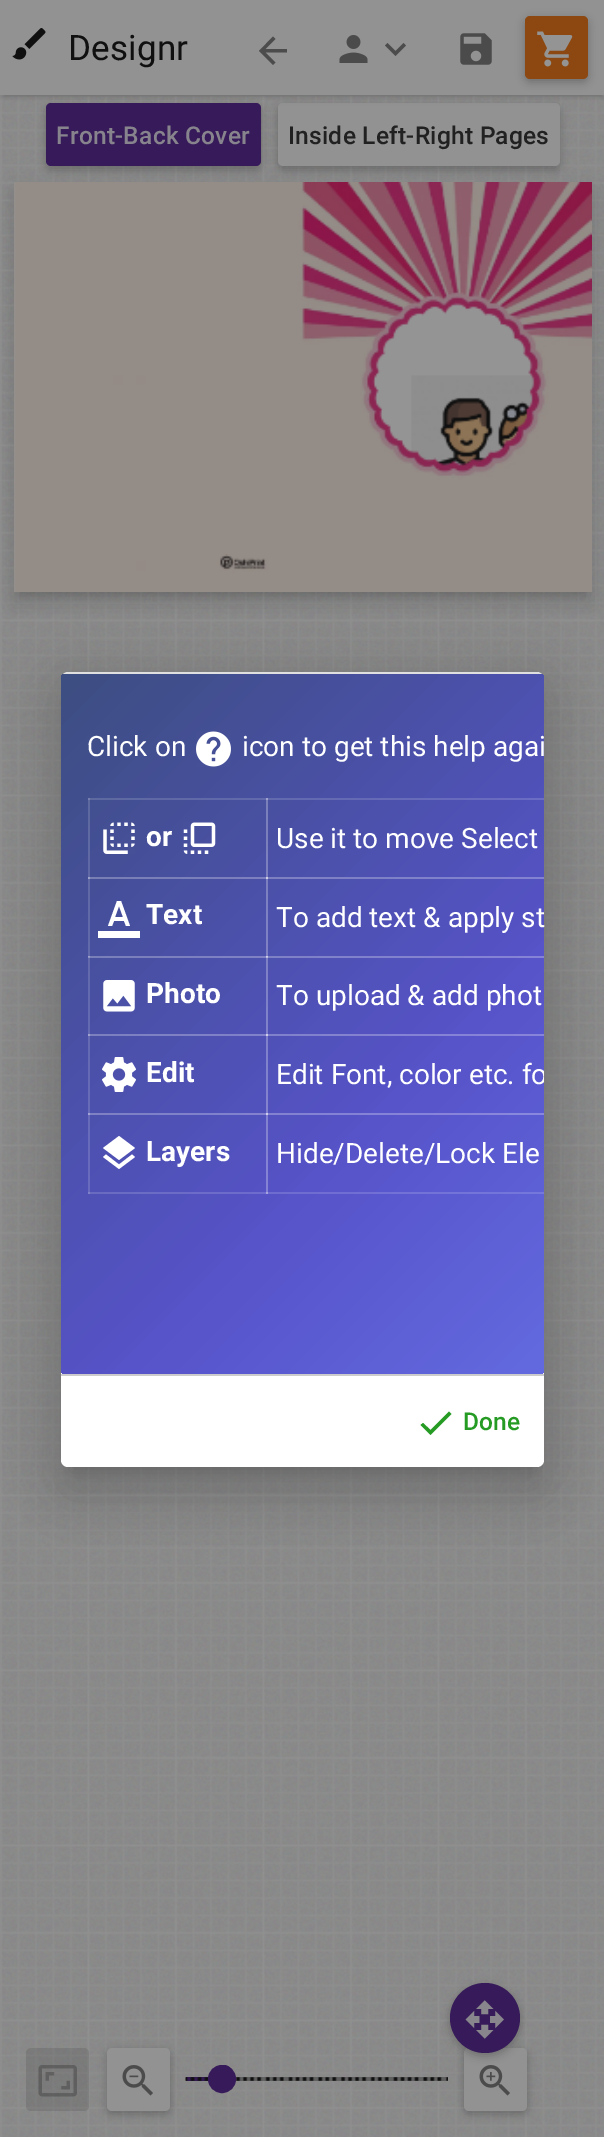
%!PS
<< /PageSize [604 2137] /PageUsesTransparency true >> setpagedevice
/m/moveto load def
/l/rlineto load def
/z/closepath load def
/f/fill load def
/s/stroke load def
/q/gsave load def
/Q_/grestore load def
/w/setlinewidth load def
/C { dup -16 bitshift 255 div exch dup -8 bitshift 255 and 255 div exch 255 and 255 div setrgbcolor } def
/F { [ exch dup neg 0 0 3 -1 roll 0 0 ] selectfont } def
/T { moveto show } def
/R { rectfill } def
/A { dup .setfillconstantalpha .setstrokeconstantalpha } def
/O { newpath 0 360 arc closepath } def
/Q { 5 dict begin { /r /h /w /y /x } { exch def } forall
  x r add y moveto x w add y 2 copy h add r arct x w add y h add x 1 index r arct
  x y h add x y r arct x y 2 copy exch w add exch r arct closepath end } def
/S { 12 dict begin { /a /b /q /h /w /y /x } { exch def } forall gsave /was 0 def
  9 -2 -9 { dup b mul 4 div /e exch def 1 sub .425 mul 2.718 exch exp 1 add a .99 .min exch div /now exch def
    1 1 now sub 1 was sub div sub A /was now def
    w h .min e 2 mul add 0 gt { x e sub y e sub w e 2 mul add h e 2 mul add
      q e add b .6 mul add w h .min 2 div e add .min 0 .max Q fill } if } for grestore end } def
/I { 5 dict begin { /h /w /y /x /name } { exch def } forall
  gsave x y translate w h scale
  w h 8 [w 0 0 h 0 0] name (r) file false 3 colorimage grestore end } def
0 .pushpdf14devicefilter
0 2137 translate 1 -1 scale
4 setmiterlimit
16#FFFFFF C
0 0 604 2137 R
(5.rgb) 0 95 604 2042 I
16#101010 C
11 184 584 416 0 12 .08 S
12 194 581 413 0 9 .1 S
19 196 567 399 0 4.5 .14 S
(6.rgb) 14 182 578 410 I
46 107 215 63 5 4.5 .26 S
16#361A59 C
46 103 215 63 5 Q f
16#101010 C
278 107 282 63 5 4.5 .26 S
16#929292 C
278 103 282 63 5 Q f
16#101010 C
0 2 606 94 0 4.5 .08 S
0 4 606 94 0 2 .1 S
4 9 598 87 0 1 .14 S
16#929292 C
0 0 604 95 R
(1.rgb) 12 28 34 32 I
/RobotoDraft-Regular 35 F
16#101010 C
68 60 m .25 0 (Designr) ashow
16#4C4C4C C
287 49 m 0 3.5 l -21.5 0 l 10 10 l -2.5 2.5 l -14 -14 l 14 -14.5 l 2.5 2.5 l -10 10 l z f
(2.rgb) 339 35 29 28 I
403.5 43 m 2.5 2.5 l -10.5 10.5 l -10.5 -10.5 l 2.5 -2.5 l 8 8 l z f
(3.rgb) 460 33 32 32 I
16#101010 C
525 19 63 63 5 4.5 .26 S
16#8C4810 C
525 16 63 63 5 Q f
(4.rgb) 537 31 36 36 I
/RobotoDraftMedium-Medium 24.5 F
16#88848D C
56 144 m .25 0 (Front-Back Cover) ashow
16#212121 C
288 144 m .25 0 (Inside Left-Right Pages) ashow
16#101010 C
464 2051 63 63 5 4.5 .26 S
16#929292 C
464 2048 63 63 5 Q f
(11.rgb) 479 2065 31 31 I
16#101010 C
450 1986 70 70 35 4.5 .26 S
16#361A59 C
485 2018 35 O f
(7.rgb) 465 2000 39 39 I
0.12 A
16#101010 C
26 2048 63 63 5 Q f
1 A
(8.rgb) 38 2065 39 32 I
107 2051 63 63 5 4.5 .26 S
16#929292 C
107 2048 63 63 5 Q f
(9.rgb) 122 2065 31 31 I
16#361A59 C
186 2077 23 4 R
0.26 A
16#101010 C
235 2077 213 4 R
0.12 A
186 2077 262 4 R
1 A
(10.rgb) 185 2077 263 4 I
16#361A59 C
214 2065 19 21 9.5 Q f
222 2079 12.5 O q f Q_
3 w
s
16#000000 C
53 674 500 812 16 26 .08 S
58 697 490 801 11 21 .1 S
70 695 466 777 0 9 .14 S
16#FFFFFF C
61 672 483 795 7 Q f
q
61 672 483 795 7 Q clip newpath
0.12 A
16#000000 C
61 672 483 2 R
1 A
q 61 674 483 700 4 Q clip newpath
<< /ShadingType 2 /ColorSpace /DeviceRGB /Coords [105 630 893 1418] /Extend [true true] /Function << /FunctionType 3 /Domain [0 1] /Functions [<< /FunctionType 2 /Domain [0 1] /C0 [.239 .306 .506] /C1 [.341 .325 .788] /N 1 >> << /FunctionType 2 /Domain [0 1] /C0 [.341 .325 .788] /C1 [.431 .498 .953] /N 1 >>] /Bounds [.48] /Encode [0 1 0 1] >> >> shfill Q_
Q_
/RobotoDraft-Regular 28 F
(Click on) 87 756 T
(12.rgb) 196 731 35 36 I
(icon to get this help agai) 242 756 T
0.15 A
266 798 278 2 R
266 877 278 2 R
266 956 278 2 R
266 1034 278 2 R
266 1113 278 2 R
266 1192 278 2 R
266 1113 2 81 R
88 1113 180 2 R
266 1113 2 81 R
266 1113 278 2 R
266 1034 2 81 R
88 1034 180 2 R
266 1034 2 81 R
266 1034 278 2 R
266 956 2 80 R
88 956 180 2 R
266 956 2 80 R
266 956 278 2 R
266 877 2 80 R
88 877 180 2 R
266 877 2 80 R
266 877 278 2 R
266 798 2 81 R
88 798 180 2 R
266 798 2 81 R
88 1192 180 2 R
88 1113 2 81 R
88 1113 180 2 R
88 1034 2 81 R
88 1034 180 2 R
88 956 2 80 R
88 956 180 2 R
88 877 2 80 R
88 877 180 2 R
88 798 2 81 R
1 A
(13.rgb) 103 822 32 32 I
/RobotoDraft-Bold 28 F
(or) 146 846 T
(14.rgb) 183 822 33 32 I
/RobotoDraft-Regular 28 F
(Use it to move Select) 276 848 T
115 917 m 8 0 l -4 -11 l z 117 901 m 4 0 l 9 25 l -4 0 l -2 -5 l -10 0 l -2 5 l -4 0 l z 98 931 m 42 0 l 0 7 l -42 0 l z f
/RobotoDraft-Bold 28 F
(Text) 146 924 T
/RobotoDraft-Regular 28 F
(To add text & apply st) 276 927 T
(15.rgb) 103 980 32 32 I
/RobotoDraft-Bold 28 F
(Photo) 146 1003 T
/RobotoDraft-Regular 28 F
(To upload & add phot) 276 1005 T
(16.rgb) 102 1057 34 35 I
/RobotoDraft-Bold 28 F
(Edit) 146 1082 T
q
61 674 483 700 4 Q clip newpath
/RobotoDraft-Regular 28 F
(Edit Font, color etc. fo) 276 1084 T
Q_
119 1160 m -16 -12 l 16 -12 l 16 12 l z 119 1164.5 m 13 -10 l 3 2.5 l -16 12 l -16 -12 l 3 -2.5 l z f
(Layers) 146 1161 T
/RobotoDraft-Regular 28 F
(Hide/Delete/Lock Ele) 276 1163 T
16#CCCCCC C
61 1374 483 2 R
16#259B24 C
430.5 1430 m 18.5 -18.5 l 2.5 2.5 l -21 21 l -10 -10 l 2.5 -2 l z f
/RobotoDraftMedium-Medium 24.5 F
463 1430 m .25 0 (Done) ashow
.poppdf14devicefilter showpage
